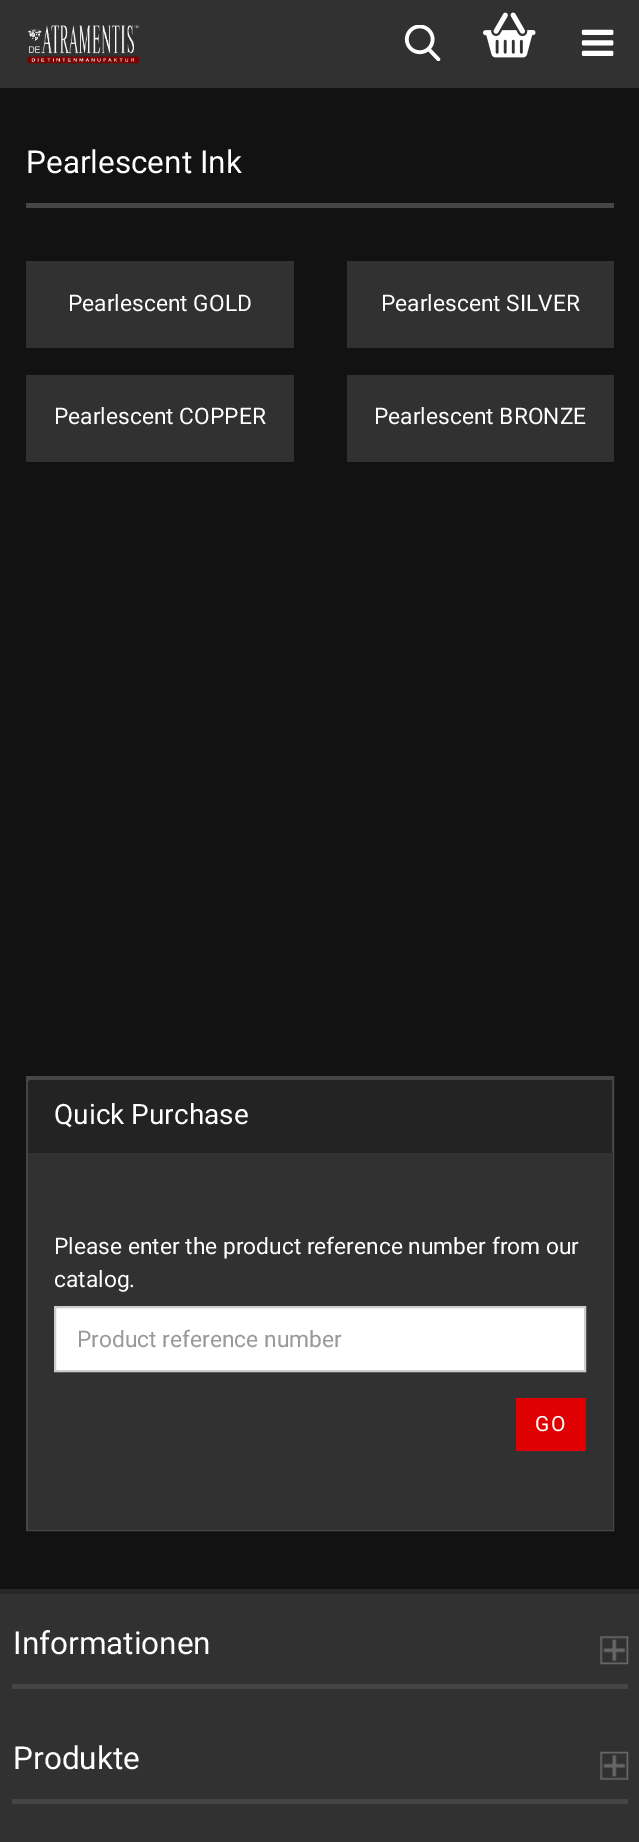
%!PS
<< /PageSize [639 1842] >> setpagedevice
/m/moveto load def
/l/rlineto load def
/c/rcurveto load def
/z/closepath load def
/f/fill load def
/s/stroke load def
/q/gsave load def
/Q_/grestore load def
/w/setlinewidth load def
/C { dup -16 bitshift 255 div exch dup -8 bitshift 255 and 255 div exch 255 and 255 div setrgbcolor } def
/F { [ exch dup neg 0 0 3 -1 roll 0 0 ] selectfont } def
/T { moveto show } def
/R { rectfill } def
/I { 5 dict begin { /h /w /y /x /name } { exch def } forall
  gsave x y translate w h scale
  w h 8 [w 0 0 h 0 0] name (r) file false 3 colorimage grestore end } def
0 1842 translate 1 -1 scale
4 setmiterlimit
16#121212 C
0 0 639 1842 R
16#313131 C
0 0 639 88 R
(1.rgb) 27 25 112 39 I
(2.rgb) 404 25 37 36 I
(3.rgb) 483 12 53 46 I
(4.rgb) 581 29 33 27 I
16#454545 C
26 203 588 5 R
/Roboto-Regular 31.5 F
16#FFFFFF C
(Pearlescent Ink) 26 173 T
16#313131 C
26 261 268 87 R
/Roboto-Regular 22.75 F
16#FFFFFF C
(Pearlescent GOLD) 68 311 T
16#313131 C
347 261 267 87 R
16#FFFFFF C
(Pearlescent SILVER) 381 311 T
16#313131 C
26 375 268 87 R
16#FFFFFF C
(Pearlescent COPPER) 54 424 T
16#313131 C
347 375 267 87 R
16#FFFFFF C
(Pearlescent BRONZE) 374 424 T
28 1078 584 2 R
16#454545 C
2 w
27 1077 586 453 rectstroke
16#232323 C
30 1078 m 581 0 l 1 0 2 1 2 2 c 0 73 l -585 0 l 0 -73 l 0 -1 1 -2 2 -2 c z f
16#434446 C
30 1080 m 581 0 l 1 0 1 1 1 2 c 0 71 l 1 0 l 0 -73 l 0 -1 -1 -2 -2 -2 c -581 0 l -1 0 -2 1 -2 2 c 0 2 l 0 -1 1 -2 2 -2 c z f
/Roboto-Regular 28 F
16#FFFFFF C
(Quick Purchase) 54 1124 T
16#313131 C
28 1153 585 377 R
/Roboto-Regular 22.75 F
16#FFFFFF C
(Please enter the product reference number from our) 54 1254 T
(catalog.) 54 1287 T
55 1307 m 530 0 l 0 64 l -530 0 l z q f Q_
16#CCCCCC C
s
16#999999 C
(Product reference number) 77 1347 T
16#DF0003 C
516 1398 70 53 R
/Roboto-Regular 21 F
16#FFFFFF C
535 1431 m 2 0 (GO) ashow
16#313131 C
0 1594 639 248 R
16#282828 C
0 1589 639 5 R
16#454545 C
12 1684 616 5 R
/Roboto-Regular 31.5 F
16#FFFFFF C
(Informationen) 13 1654 T
(5.rgb) 600 1636 29 29 I
16#454545 C
12 1799 616 5 R
16#FFFFFF C
(Produkte) 13 1769 T
(6.rgb) 600 1751 29 29 I
showpage
